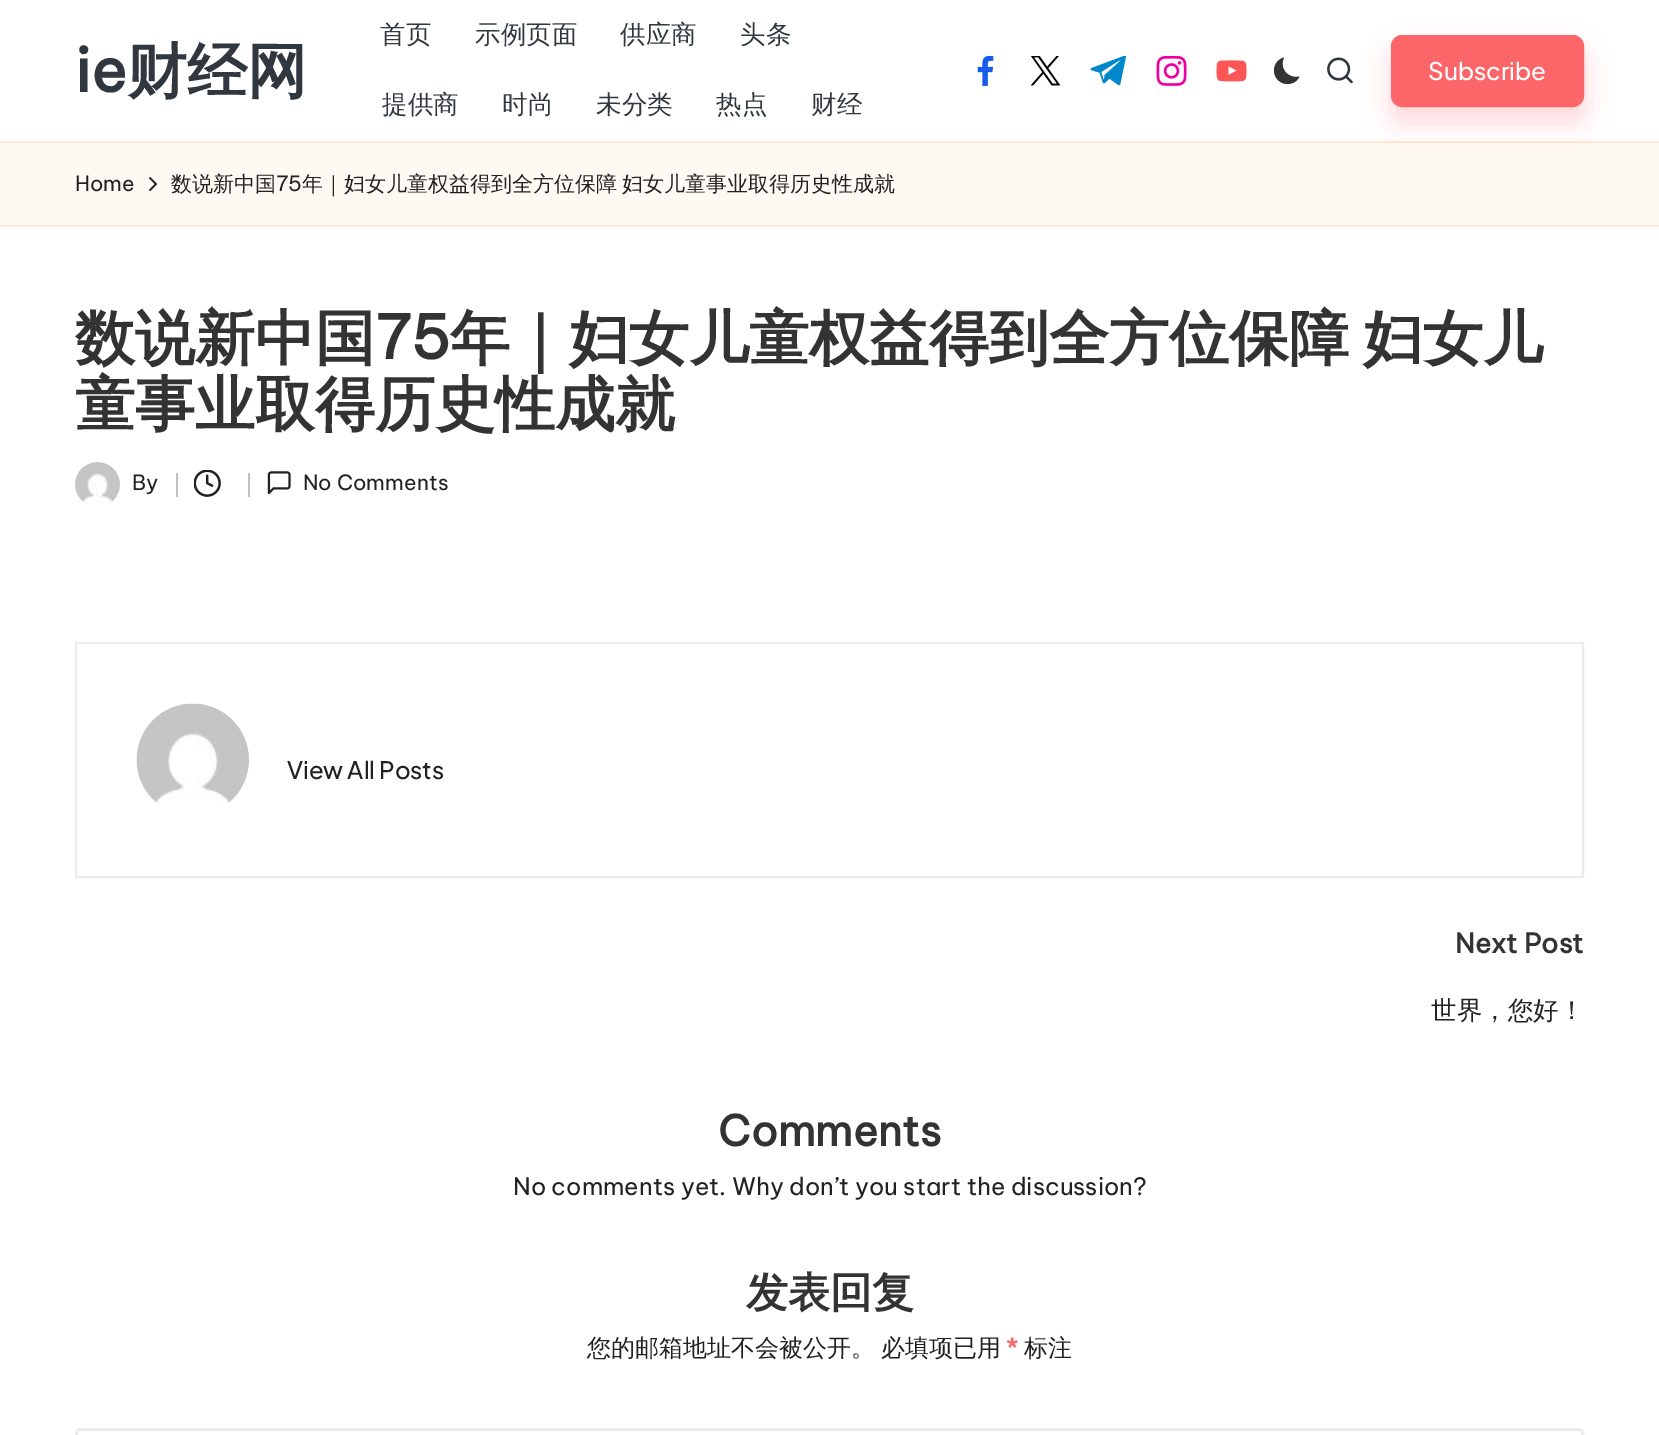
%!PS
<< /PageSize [1659 1435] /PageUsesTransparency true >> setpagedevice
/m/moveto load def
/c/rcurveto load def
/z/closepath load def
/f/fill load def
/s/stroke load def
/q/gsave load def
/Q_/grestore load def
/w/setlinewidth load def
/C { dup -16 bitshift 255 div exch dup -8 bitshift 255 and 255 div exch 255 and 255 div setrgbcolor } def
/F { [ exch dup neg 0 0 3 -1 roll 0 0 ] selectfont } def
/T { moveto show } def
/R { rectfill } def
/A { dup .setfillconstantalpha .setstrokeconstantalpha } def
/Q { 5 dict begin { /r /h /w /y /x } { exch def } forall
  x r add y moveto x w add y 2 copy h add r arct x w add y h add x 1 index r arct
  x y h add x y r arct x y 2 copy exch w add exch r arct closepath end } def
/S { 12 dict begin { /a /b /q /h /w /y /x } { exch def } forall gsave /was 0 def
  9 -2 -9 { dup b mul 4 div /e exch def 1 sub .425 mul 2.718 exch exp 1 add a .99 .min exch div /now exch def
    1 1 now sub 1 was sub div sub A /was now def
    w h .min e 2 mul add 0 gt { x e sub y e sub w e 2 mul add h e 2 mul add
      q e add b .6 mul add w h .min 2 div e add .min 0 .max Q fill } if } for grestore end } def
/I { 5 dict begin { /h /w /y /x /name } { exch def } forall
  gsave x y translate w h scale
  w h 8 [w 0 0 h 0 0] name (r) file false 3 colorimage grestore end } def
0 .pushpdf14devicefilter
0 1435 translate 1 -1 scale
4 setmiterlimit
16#FFFFFF C
0 0 1659 1435 R
/BeVietnamPro-Bold 60 F
16#30373E C
(ie) 75 92 T
/WenQuanYiZenHei-Bold 60 F
(财经网) 127 92 T
/WenQuanYiZenHei-Medium 25.5 F
(首页) 380 43 T
(示例页面) 475 43 T
(供应商) 620 43 T
(头条) 740 43 T
(提供商) 382 113 T
(时尚) 502 113 T
(未分类) 596 113 T
(热点) 716 113 T
(财经) 811 113 T
(1.rgb) 977 56 17 30 I
(2.rgb) 1030 56 31 30 I
(3.rgb) 1090 56 36 30 I
(4.rgb) 1156 56 31 30 I
(5.rgb) 1216 60 31 22 I
16#333333 C
1299.5 76.5 m -11.5 2.5 -20.5 -8 -15.5 -19 c -6 1.5 -10 7 -10 13 c 0 7.5 6 13.5 13.5 13.5 c 5.5 0 10 -3 12 -7.5 c z f
(6.rgb) 1327 57 26 27 I
16#FFF9F3 C
0 143 1659 82 R
16#FFE7D2 C
0 141 1659 2 R
16#FC6668 C
1391 50 193 72 11 13.5 .27 S
1392 36 191 70 10 Q q f Q_
2 w
s
/PlusJakartaSans-Medium 24.25 F
16#FFFFFF C
(Subscribe) 1428 80 T
16#FFE7D2 C
0 225 1659 2 R
/BeVietnamPro-Regular 21 F
16#212121 C
(Home) 75 191 T
(7.rgb) 149 177 8 14 I
/WenQuanYiZenHei-Medium 21 F
(数说新中国) 171 191 T
/BeVietnamPro-Regular 21 F
(75) 276 191 T
/WenQuanYiZenHei-Medium 21 F
302 191 m -1 0 32 (年｜妇女儿童权益得到全方位保障 妇女儿童事业取得历史性成就) widthshow
/WenQuanYiZenHei-Bold 60 F
16#333333 C
(数说新中国) 75 359 T
/BeVietnamPro-Bold 60 F
(75) 375 359 T
/WenQuanYiZenHei-Bold 60 F
450 359 m -4 0 32 (年｜妇女儿童权益得到全方位保障 妇女儿) widthshow
(童事业取得历史性成就) 75 425 T
(8.rgb) 75 462 45 42 I
/BeVietnamPro-Regular 21 F
16#212121 C
(By) 132 490 T
16#BFBFBF C
176 473 2 24 R
(9.rgb) 194 470 27 27 I
248 473 2 24 R
(10.rgb) 267 471 24 24 I
16#212121 C
(No Comments) 303 490 T
16#ECECEC C
76 643 1507 234 rectstroke
(11.rgb) 136 703 113 100 I
/PlusJakartaSans-Medium 24 F
16#212121 C
(View All Posts) 287 779 T
/BeVietnamPro-Bold 27 F
16#333333 C
(Next Post) 1455 953 T
/WenQuanYiZenHei-Medium 25.5 F
16#212121 C
(世界，您好！) 1431 1019 T
/BeVietnamPro-Bold 42 F
16#333333 C
(Comments) 718 1146 T
/BeVietnamPro-Regular 24 F
16#212121 C
(No comments yet. Why don’t you start the discussion?) 513 1195 T
/WenQuanYiZenHei-Bold 42 F
16#333333 C
(发表回复) 746 1307 T
/WenQuanYiZenHei-Medium 24 F
16#212121 C
(您的邮箱地址不会被公开。) 587 1356 T
(必填项已用) 881 1356 T
/BeVietnamPro-Bold 24 F
16#FC6668 C
(*) 1006 1356 T
/WenQuanYiZenHei-Medium 24 F
16#212121 C
(标注) 1024 1356 T
16#ECECEC C
3 w
76.5 1429.5 1506 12 3.5 Q s
.poppdf14devicefilter showpage
